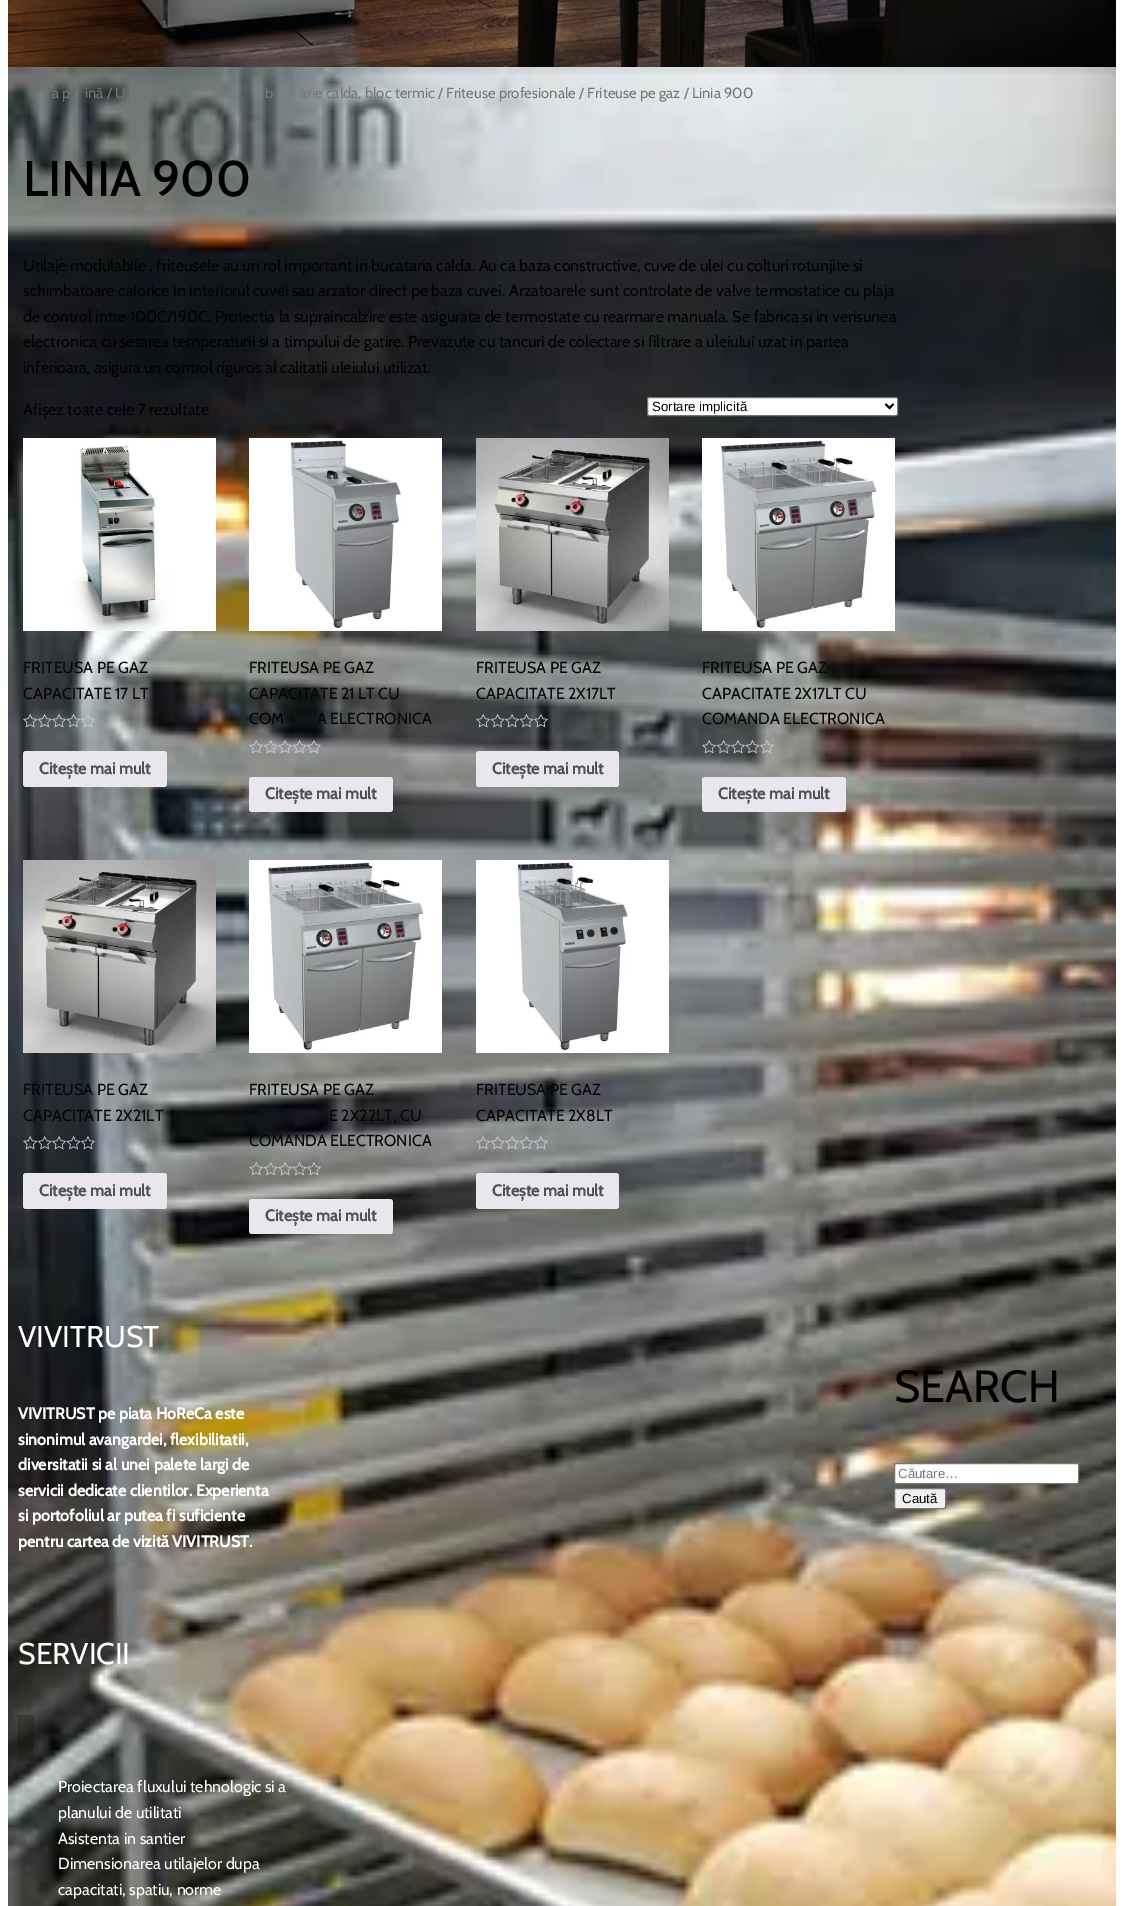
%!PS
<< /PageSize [1124 1906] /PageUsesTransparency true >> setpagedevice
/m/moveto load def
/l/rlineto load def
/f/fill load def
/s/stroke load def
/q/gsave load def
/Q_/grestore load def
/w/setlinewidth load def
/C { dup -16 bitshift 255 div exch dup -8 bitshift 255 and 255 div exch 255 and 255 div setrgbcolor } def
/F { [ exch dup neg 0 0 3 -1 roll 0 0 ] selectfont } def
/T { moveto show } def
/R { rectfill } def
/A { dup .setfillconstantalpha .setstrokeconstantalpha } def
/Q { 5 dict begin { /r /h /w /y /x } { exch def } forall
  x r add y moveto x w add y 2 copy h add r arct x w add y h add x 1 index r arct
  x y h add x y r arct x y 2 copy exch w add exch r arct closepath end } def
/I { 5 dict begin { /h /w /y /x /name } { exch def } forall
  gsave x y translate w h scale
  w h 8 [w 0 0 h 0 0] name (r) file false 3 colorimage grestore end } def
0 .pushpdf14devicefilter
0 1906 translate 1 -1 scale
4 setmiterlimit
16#FFFFFF C
0 0 1124 1906 R
(1.rgb) 8 0 1108 67 I
(16.rgb) 8 67 1108 1839 I
/Cabin-Regular 14.75 F
16#767676 C
(a p) 52 98 T
(ină / U) 85 98 T
(b) 265 98 T
(arie calda, bloc termic / Friteuse profesionale / Friteuse pe gaz / Linia 900) 300 98 T
/Cabin-Medium 50 F
16#000000 C
(LINIA 900) 23 196 T
/Cabin-Regular 16 F
(Utilaje modulabile , friteusele au un rol important in bucataria calda. Au ca baza constructive, cuve de ulei cu colturi rotunjite si) 23 271 T
(schimbatoare calorice in interiorul cuvei sau arzator direct pe baza cuvei. Arzatoarele sunt controlate de valve termostatice cu plaja) 23 296 T
(de control intre 100C/190C. Protectia la supraincalzire este asigurata de termostate cu rearmare manuala. Se fabrica si in verisunea) 23 322 T
(electronica cu setarea temperaturii si a timpului de gatire. Prevazute cu tancuri de colectare si filtrare a uleiului uzat in partea) 23 347 T
(inferioara, asigura un control riguros al calitatii uleiului utilizat.) 23 373 T
(Afișez toate cele 7 rezultate) 23 415 T
16#FFFFFF C
647.5 397.5 250 18 1.5 Q q f Q_
16#767676 C
s
16#000000 C
2 w
885.5 404 m 4 4 l 4 -4 l s
/LiberationSans-Regular 13.25 F
(Sortare implicită) 652 411 T
(2.rgb) 23 438 193 193 I
/Cabin-Regular 16 F
16#060505 C
(FRITEUSA PE GAZ) 23 673 T
(CAPACITATE 17 LT) 23 699 T
(3.rgb) 23 714 72 14 I
16#E9E6ED C
23 751 144 36 3 Q f
/Cabin-Bold 16 F
16#515151 C
(Citește mai mult) 39 774 T
(4.rgb) 249 438 193 193 I
/Cabin-Regular 16 F
16#060505 C
(FRITEUSA PE GAZ) 249 673 T
(CAPACITATE 21 LT CU) 249 699 T
(COM) 249 724 T
(A ELECTRONICA) 317 724 T
(5.rgb) 249 740 72 14 I
16#E9E6ED C
249 777 144 35 3 Q f
/Cabin-Bold 16 F
16#515151 C
(Citește mai mult) 265 799 T
(6.rgb) 476 438 193 193 I
/Cabin-Regular 16 F
16#060505 C
(FRITEUSA PE GAZ) 476 673 T
(CAPACITATE 2X17LT) 476 699 T
(7.rgb) 476 714 72 14 I
16#E9E6ED C
476 751 143 36 3 Q f
/Cabin-Bold 16 F
16#515151 C
(Citește mai mult) 492 774 T
(8.rgb) 702 438 193 193 I
/Cabin-Regular 16 F
16#060505 C
(FRITEUSA PE GAZ) 702 673 T
(CAPACITATE 2X17LT CU) 702 699 T
(COMANDA ELECTRONICA) 702 724 T
(9.rgb) 702 740 72 14 I
16#E9E6ED C
702 777 144 35 3 Q f
/Cabin-Bold 16 F
16#515151 C
(Citește mai mult) 718 799 T
(10.rgb) 23 860 193 193 I
/Cabin-Regular 16 F
16#060505 C
(FRITEUSA PE GAZ) 23 1095 T
(CAPACITATE 2X21LT) 23 1121 T
(11.rgb) 23 1136 72 14 I
16#E9E6ED C
23 1173 144 36 3 Q f
/Cabin-Bold 16 F
16#515151 C
(Citește mai mult) 39 1196 T
(12.rgb) 249 860 193 193 I
/Cabin-Regular 16 F
16#060505 C
(FRITEUSA PE GAZ) 249 1095 T
(E 2X22LT, CU) 329 1121 T
(COMANDA ELECTRONICA) 249 1146 T
(13.rgb) 249 1162 72 14 I
16#E9E6ED C
249 1199 144 35 3 Q f
/Cabin-Bold 16 F
16#515151 C
(Citește mai mult) 265 1221 T
(14.rgb) 476 860 193 193 I
/Cabin-Regular 16 F
16#060505 C
(FRITEUSA PE GAZ) 476 1095 T
(CAPACITATE 2X8LT) 476 1121 T
(15.rgb) 476 1136 72 14 I
16#E9E6ED C
476 1173 143 36 3 Q f
/Cabin-Bold 16 F
16#515151 C
(Citește mai mult) 492 1196 T
/Cabin-Regular 30 F
16#FFFFFF C
(VIVITRUST) 18 1347 T
/Cabin-Bold 16 F
(VIVITRUST pe piata HoReCa este) 18 1419 T
(sinonimul avangardei, flexibilitatii,) 18 1445 T
(diversitatii si al unei palete largi de) 18 1470 T
(servicii dedicate clientilor. Experienta) 18 1496 T
(si portofoliul ar putea fi suficiente) 18 1521 T
(pentru cartea de vizită VIVITRUST.) 18 1547 T
/Cabin-Regular 30 F
(SERVICII) 18 1664 T
0.21 A
16#000000 C
18 1715 16 46 R
/Cabin-Regular 16 F
1 A
16#FFFFFF C
(Proiectarea fluxului tehnologic si a) 58 1792 T
(planului de utilitati) 58 1818 T
(Asistenta in santier) 58 1844 T
(Dimensionarea utilajelor dupa) 58 1869 T
(capacitati, spatiu, norme) 58 1895 T
/Cabin-Regular 45 F
16#000000 C
(SEARCH) 894 1402 T
16#FFFFFF C
894.5 1463.5 184 20 1.5 Q q f Q_
16#767676 C
1 w
s
/LiberationSans-Regular 13.25 F
(Căutare…) 898 1478 T
16#EFEFEF C
894.5 1488.5 51 20 1.5 Q q f Q_
16#767676 C
s
16#000000 C
(Caută) 902 1503 T
.poppdf14devicefilter showpage
